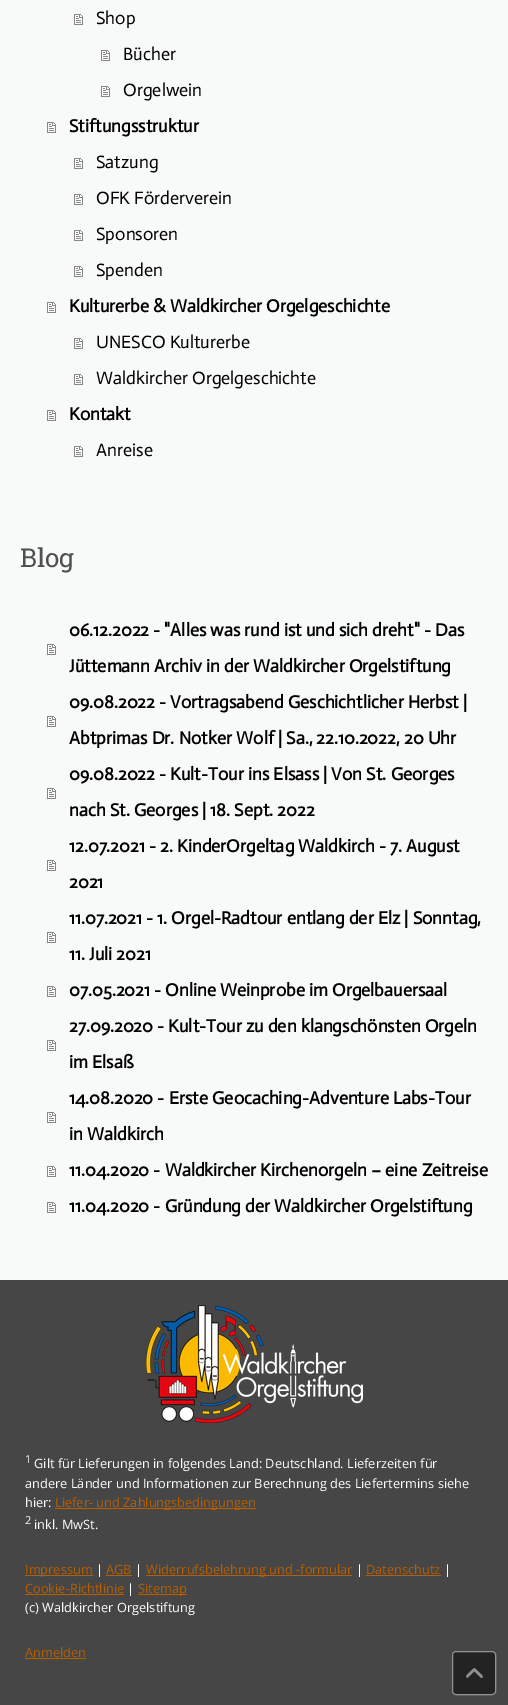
%!PS
<< /PageSize [508 1705] /PageUsesTransparency true >> setpagedevice
/f/fill load def
/s/stroke load def
/C { dup -16 bitshift 255 div exch dup -8 bitshift 255 and 255 div exch 255 and 255 div setrgbcolor } def
/F { [ exch dup neg 0 0 3 -1 roll 0 0 ] selectfont } def
/T { moveto show } def
/R { rectfill } def
/A { dup .setfillconstantalpha .setstrokeconstantalpha } def
/Q { 5 dict begin { /r /h /w /y /x } { exch def } forall
  x r add y moveto x w add y 2 copy h add r arct x w add y h add x 1 index r arct
  x y h add x y r arct x y 2 copy exch w add exch r arct closepath end } def
/I { 5 dict begin { /h /w /y /x /name } { exch def } forall
  gsave x y translate w h scale
  w h 8 [w 0 0 h 0 0] name (r) file false 3 colorimage grestore end } def
0 .pushpdf14devicefilter
0 1705 translate 1 -1 scale
4 setmiterlimit
16#F8F9F9 C
0 0 508 1705 R
(1.rgb) 74 14 9 11 I
/Actor-Regular 18 F
16#000000 C
(Shop) 96 24 T
(1.rgb) 101 50 9 11 I
(Bücher) 123 60 T
(1.rgb) 101 86 9 11 I
(Orgelwein) 123 96 T
(1.rgb) 47 122 9 11 I
/Actor-Bold 18 F
(Stiftungsstruktur) 69 132 T
(1.rgb) 74 158 9 11 I
/Actor-Regular 18 F
(Satzung) 96 168 T
(1.rgb) 74 194 9 11 I
(OFK Förderverein) 96 204 T
(1.rgb) 74 230 9 11 I
(Sponsoren) 96 240 T
(1.rgb) 74 266 9 11 I
(Spenden) 96 276 T
(1.rgb) 47 302 9 11 I
/Actor-Bold 18 F
(Kulturerbe & Waldkircher Orgelgeschichte) 69 312 T
(1.rgb) 74 338 9 11 I
/Actor-Regular 18 F
(UNESCO Kulturerbe) 96 348 T
(1.rgb) 74 374 9 11 I
(Waldkircher Orgelgeschichte) 96 384 T
(1.rgb) 47 410 9 11 I
/Actor-Bold 18 F
(Kontakt) 69 420 T
(1.rgb) 74 446 9 11 I
/Actor-Regular 18 F
(Anreise) 96 456 T
/RobotoSlab-Regular 26 F
16#505050 C
(Blog) 20 567 T
(1.rgb) 47 644 9 11 I
/Actor-Bold 18 F
16#000000 C
(06.12.2022 - "Alles was rund ist und sich dreht" - Das) 69 636 T
(Jüttemann Archiv in der Waldkircher Orgelstiftung) 69 672 T
(1.rgb) 47 716 9 11 I
(09.08.2022 - Vortragsabend Geschichtlicher Herbst |) 69 708 T
(Abtprimas Dr. Notker Wolf | Sa., 22.10.2022, 20 Uhr) 69 744 T
(1.rgb) 47 788 9 11 I
(09.08.2022 - Kult-Tour ins Elsass | Von St. Georges) 69 780 T
(nach St. Georges | 18. Sept. 2022) 69 816 T
(1.rgb) 47 860 9 11 I
(12.07.2021 - 2. KinderOrgeltag Waldkirch - 7. August) 69 852 T
(2021) 69 888 T
(1.rgb) 47 932 9 11 I
(11.07.2021 - 1. Orgel-Radtour entlang der Elz | Sonntag,) 69 924 T
(11. Juli 2021) 69 960 T
(1.rgb) 47 986 9 11 I
(07.05.2021 - Online Weinprobe im Orgelbauersaal) 69 996 T
(1.rgb) 47 1040 9 11 I
(27.09.2020 - Kult-Tour zu den klangschönsten Orgeln) 69 1032 T
(im Elsaß) 69 1068 T
(1.rgb) 47 1112 9 11 I
(14.08.2020 - Erste Geocaching-Adventure Labs-Tour) 69 1104 T
(in Waldkirch) 69 1140 T
(1.rgb) 47 1166 9 11 I
(11.04.2020 - Waldkircher Kirchenorgeln – eine Zeitreise) 69 1176 T
(1.rgb) 47 1202 9 11 I
(11.04.2020 - Gründung der Waldkircher Orgelstiftung) 69 1212 T
16#464646 C
0 1280 508 425 R
(2.rgb) 146 1305 217 118 I
/OpenSans-Regular 11 F
16#FFFFFF C
(1) 25 1463 T
/OpenSans-Regular 12.8 F
(Gilt für Lieferungen in folgendes Land: Deutschland. Lieferzeiten für) 34 1468 T
(andere Länder und Informationen zur Berechnung des Liefertermins siehe) 25 1488 T
(hier:) 25 1507 T
16#B65F00 C
55 1508 201 1 R
(Liefer- und Zahlungsbedingungen) 55 1507 T
/OpenSans-Regular 11 F
16#FFFFFF C
(2) 25 1524 T
/OpenSans-Regular 12.8 F
(inkl. MwSt.) 34 1529 T
16#B65F00 C
25 1575 68 1 R
(Impressum) 25 1574 T
16#FFFFFF C
(|) 96 1574 T
16#B65F00 C
(AGB) 106 1574 T
106 1575 26 1 R
16#FFFFFF C
(|) 135 1574 T
16#B65F00 C
146 1575 206 1 R
(Widerrufsbelehrung und -formular) 146 1574 T
16#FFFFFF C
(|) 356 1574 T
16#B65F00 C
(Datenschutz) 366 1574 T
366 1575 75 1 R
16#FFFFFF C
(|) 444 1574 T
16#B65F00 C
(Cookie-Richtlinie) 25 1593 T
25 1594 99 1 R
16#FFFFFF C
(|) 127 1593 T
16#B65F00 C
138 1594 49 1 R
(Sitemap) 138 1593 T
16#FFFFFF C
(\(c\) Waldkircher Orgelstiftung) 25 1612 T
16#B65F00 C
(Anmelden) 25 1657 T
25 1658 61 1 R
16#232323 C
452 1651 44 44 4 Q f
0.5 A
16#FFFFFF C
452.5 1651.5 43 43 3.5 Q s
1 A
(3.rgb) 466 1668 17 10 I
.poppdf14devicefilter showpage
